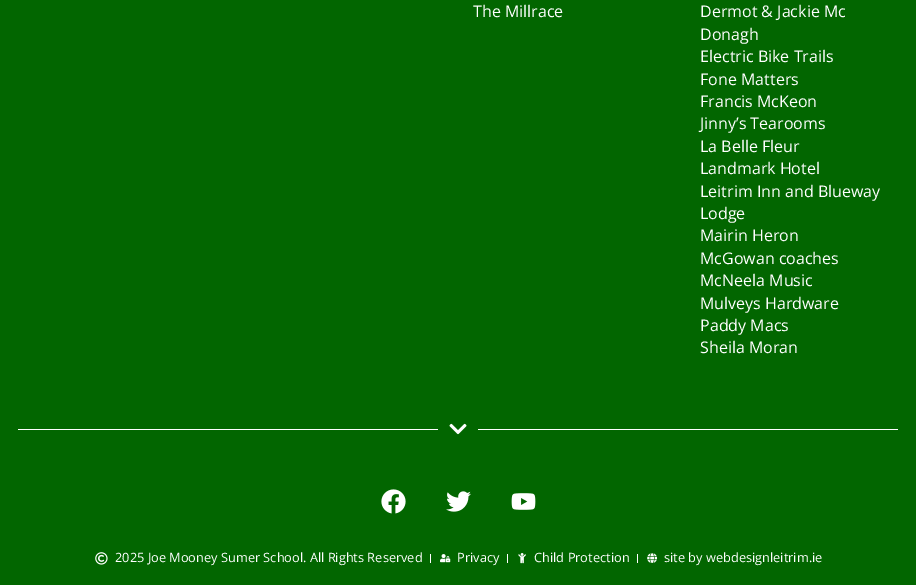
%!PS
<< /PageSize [916 585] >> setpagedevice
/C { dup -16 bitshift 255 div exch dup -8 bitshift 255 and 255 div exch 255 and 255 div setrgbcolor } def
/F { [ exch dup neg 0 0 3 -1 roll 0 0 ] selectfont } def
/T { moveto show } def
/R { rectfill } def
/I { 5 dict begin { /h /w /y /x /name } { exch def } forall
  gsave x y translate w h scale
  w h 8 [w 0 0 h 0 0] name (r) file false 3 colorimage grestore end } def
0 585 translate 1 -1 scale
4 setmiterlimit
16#026600 C
0 0 916 585 R
/OpenSans-Regular 16 F
16#FFFFFF C
(The Millrace) 473 17 T
(Dermot & Jackie Mc) 700 17 T
(Donagh) 700 40 T
(Electric Bike Trails) 700 62 T
(Fone Matters) 700 85 T
(Francis McKeon) 700 107 T
(Jinny’s Tearooms) 700 129 T
(La Belle Fleur) 700 152 T
(Landmark Hotel) 700 174 T
(Leitrim Inn and Blueway) 700 197 T
(Lodge) 700 219 T
(Mairin Heron) 700 241 T
(McGowan coaches) 700 264 T
(McNeela Music) 700 286 T
(Mulveys Hardware) 700 309 T
(Paddy Macs) 700 331 T
(Sheila Moran) 700 353 T
18 429 420 1 R
(1.rgb) 449 423 18 12 I
478 429 420 1 R
(2.rgb) 381 489 25 25 I
(3.rgb) 446 491 25 21 I
(4.rgb) 511 493 25 17 I
(5.rgb) 95 552 13 13 I
/OpenSans-Regular 12.8 F
(2025 Joe Mooney Sumer School. All Rights Reserved) 115 562 T
430 554 1 9 R
(6.rgb) 440 554 11 9 I
(Privacy) 457 562 T
507 554 1 9 R
(7.rgb) 518 553 8 11 I
(Child Protection) 534 562 T
637 554 1 9 R
(8.rgb) 647 553 11 10 I
(site by webdesignleitrim.ie) 664 562 T
showpage
